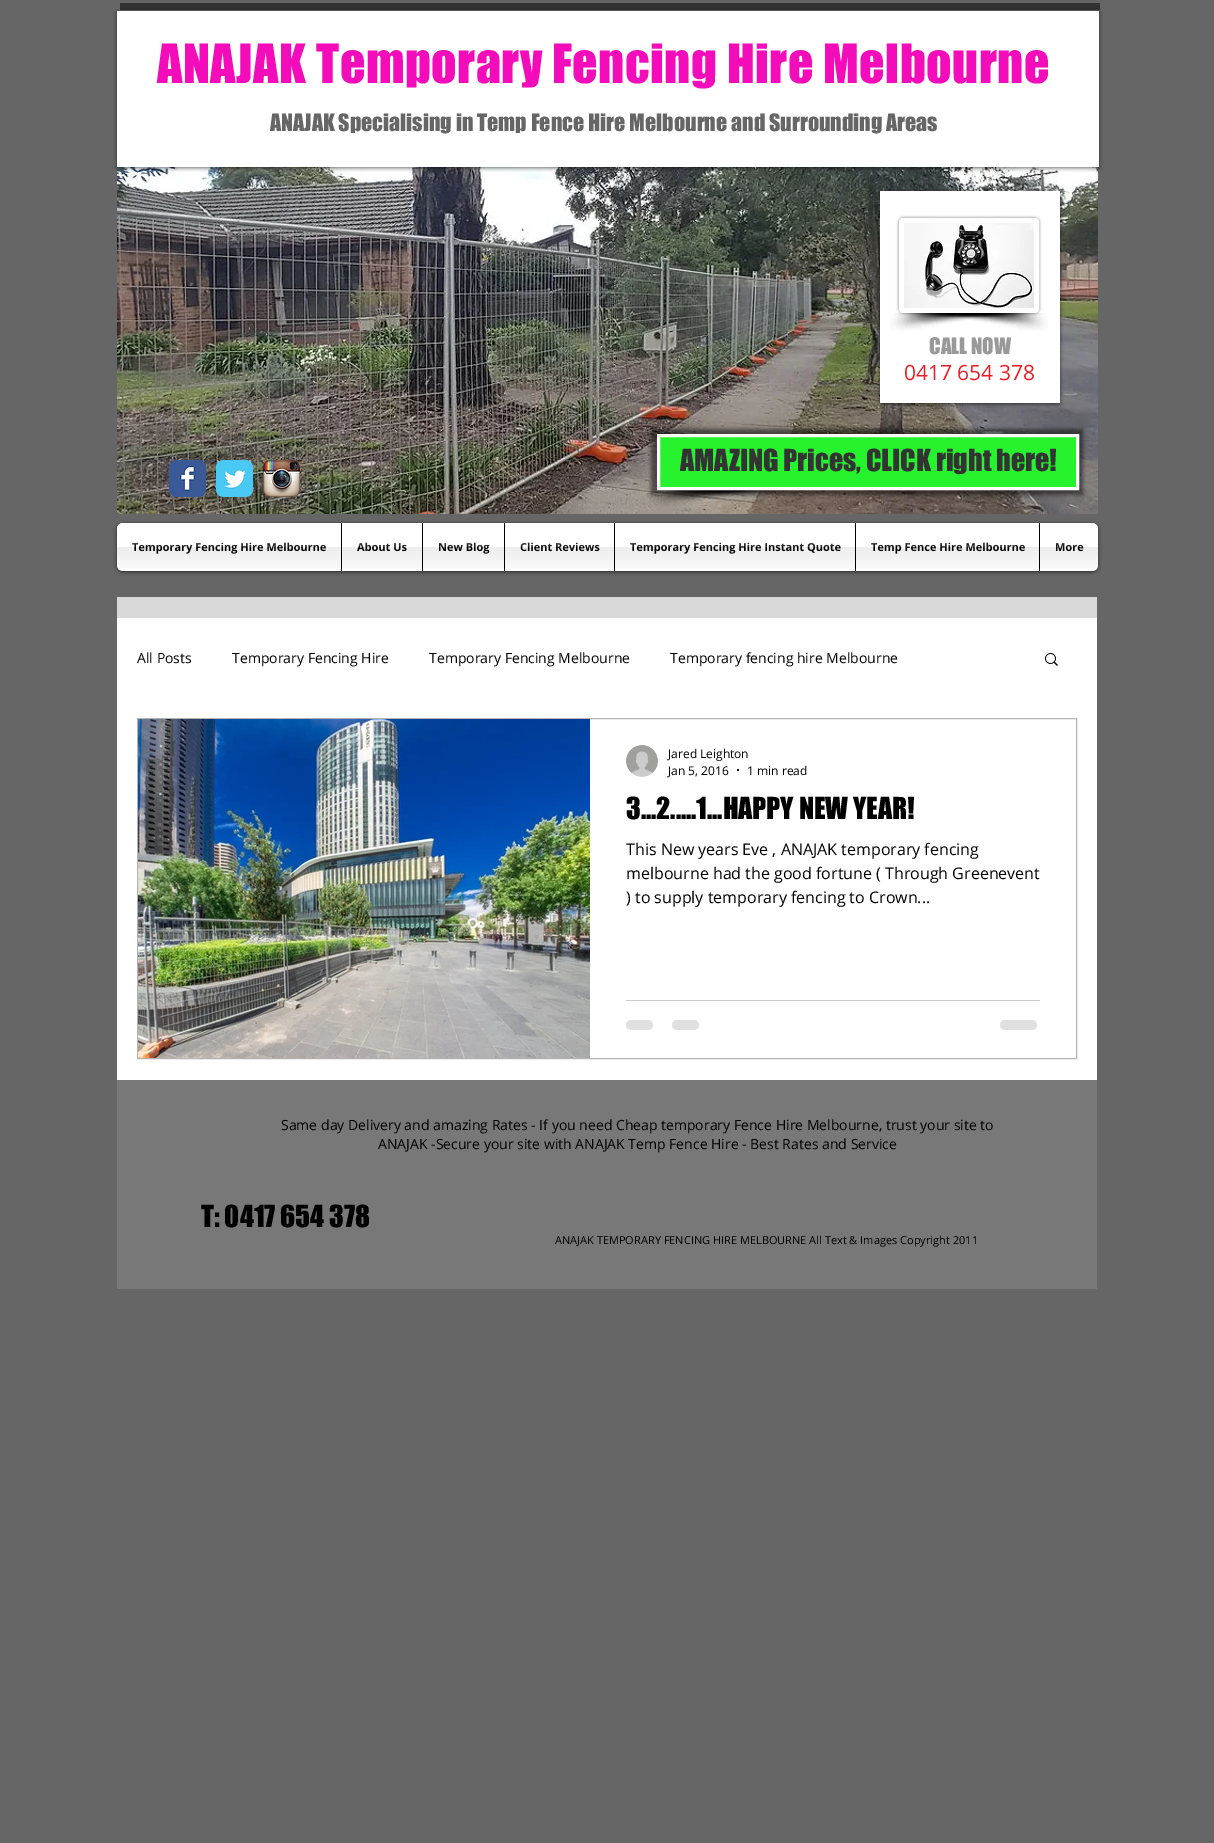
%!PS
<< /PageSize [1214 1843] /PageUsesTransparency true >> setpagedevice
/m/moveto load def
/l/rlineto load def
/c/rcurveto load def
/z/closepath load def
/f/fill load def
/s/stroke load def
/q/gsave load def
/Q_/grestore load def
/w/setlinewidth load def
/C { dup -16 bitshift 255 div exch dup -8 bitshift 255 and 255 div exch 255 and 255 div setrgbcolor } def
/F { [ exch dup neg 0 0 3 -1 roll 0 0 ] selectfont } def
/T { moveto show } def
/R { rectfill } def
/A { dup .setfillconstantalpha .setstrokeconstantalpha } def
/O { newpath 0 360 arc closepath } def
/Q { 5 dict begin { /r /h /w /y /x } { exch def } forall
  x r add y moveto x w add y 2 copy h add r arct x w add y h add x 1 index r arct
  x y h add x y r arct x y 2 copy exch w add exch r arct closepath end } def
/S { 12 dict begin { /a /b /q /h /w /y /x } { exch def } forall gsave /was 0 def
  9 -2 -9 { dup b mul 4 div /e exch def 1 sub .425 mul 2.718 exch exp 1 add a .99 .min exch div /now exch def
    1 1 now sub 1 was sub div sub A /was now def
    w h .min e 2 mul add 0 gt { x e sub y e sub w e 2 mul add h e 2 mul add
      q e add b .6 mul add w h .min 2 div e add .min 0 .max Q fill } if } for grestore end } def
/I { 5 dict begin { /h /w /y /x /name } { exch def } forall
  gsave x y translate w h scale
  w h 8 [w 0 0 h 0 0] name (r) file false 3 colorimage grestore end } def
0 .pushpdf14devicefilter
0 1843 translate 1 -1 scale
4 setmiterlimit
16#666666 C
0 0 1214 1843 R
16#333333 C
120 3 980 7 R
(1.rgb) 117 167 981 347 I
16#000000 C
117 12 982 156 0 2 .6 S
16#FFFFFF C
117 11 982 156 R
/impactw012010-Regular 50 F
16#F40CBA C
157 83 m .5 0 (ANAJAK Temporary Fencing Hire Melbourne) ashow
/impactw012010-Regular 22 F
16#666666 C
(ANAJAK Specialising in Temp Fence Hire Melbourne and Surrounding Areas) 270 131 T
16#000000 C
880 192 180 212 0 2 .6 S
16#FFFFFF C
880 191 180 212 R
16#000000 C
899 218 140 95 4 1.5 .5 S
16#FFFFFF C
5 w
901.5 220.5 135 90 1.5 Q s
(2.rgb) 904 223 130 85 I
(3.rgb) 890 313 154 18 I
(4.rgb) 894 313 154 18 I
/impactw012010-Regular 21 F
16#999999 C
(CALL NOW) 929 354 T
/OpenSans-Regular 21 F
16#ED1C24 C
(0417 654 378) 904 380 T
(5.rgb) 169 460 37 37 I
(6.rgb) 216 460 37 37 I
(7.rgb) 263 460 37 37 I
(8.rgb) 649 490 145 17 I
16#000000 C
651 429 432 66 0 2 .49 S
16#27F22E C
658.5 435.5 m 419 0 l 0 53 l -419 0 l z q f Q_
16#FFFFFF C
3 w
s
/impactw012010-Regular 28 F
16#333333 C
(AMAZING Prices, CLICK right here!) 680 471 T
16#000000 C
117 524 981 48 6 2 .6 S
(9.rgb) 117 523 981 43 I
16#FFFFFF C
123 523 m 218 0 l 0 48 l -218 0 l -3.5 0 -6 -2.5 -6 -6 c 0 -36 l 0 -3.5 2.5 -6 6 -6 c z f
/OpenSans-Bold 11 F
16#000000 C
(Temporary Fencing Hire Melbourne) 132 551 T
(10.rgb) 117 523 224 45 I
16#FFFFFF C
342 523 80 48 R
16#000000 C
341 523 1 48 R
(About Us) 357 551 T
(11.rgb) 342 542 80 26 I
16#FFFFFF C
423 523 81 48 R
16#000000 C
422 523 1 48 R
(New Blog) 438 551 T
(12.rgb) 423 542 81 26 I
16#FFFFFF C
505 523 109 48 R
16#000000 C
504 523 1 48 R
(Client Reviews) 520 551 T
(13.rgb) 505 542 109 26 I
16#FFFFFF C
615 523 240 48 R
16#000000 C
614 523 1 48 R
(Temporary Fencing Hire Instant Quote) 630 551 T
(14.rgb) 615 542 240 26 I
16#FFFFFF C
856 523 183 48 R
16#000000 C
855 523 1 48 R
(Temp Fence Hire Melbourne) 871 551 T
(15.rgb) 856 542 183 26 I
16#FFFFFF C
1039 523 m 53 0 l 3.5 0 6 2.5 6 6 c 0 36 l 0 3.5 -2.5 6 -6 6 c -53 0 l z f
16#000000 C
1039 523 1 48 R
(More) 1055 551 T
(16.rgb) 1040 523 58 45 I
16#D9D9D9 C
117 597 980 21 R
16#FFFFFF C
117 618 980 462 R
/OpenSans-Regular 14 F
16#000000 C
(All Posts) 137 663 T
(Temporary Fencing Hire) 232 663 T
(Temporary Fencing Melbourne) 429 663 T
(Temporary fencing hire Melbourne) 670 663 T
(17.rgb) 1045 653 13 13 I
16#B3B3B3 C
1 w
137.5 718.5 939 340 rectstroke
(18.rgb) 138 719 452 339 I
(19.rgb) 626 745 32 32 I
/OpenSans-Regular 12 F
16#000000 C
(Jared Leighton) 668 758 T
(Jan 5, 2016) 668 775 T
738 770 1 O f
(1 min read) 747 775 T
/impactw012010-Regular 28 F
(3...2.....1...HAPPY NEW YEAR!) 626 819 T
/OpenSans-Regular 16 F
(This New years Eve , ANAJAK temporary fencing) 626 855 T
(melbourne had the good fortune \( Through Greenevent) 626 879 T
(\) to supply temporary fencing to Crown...) 626 903 T
16#CCCCCC C
626 1000 414 1 R
16#E0E0E0 C
626 1020 27 10 5 Q f
672 1020 27 10 5 Q f
1000 1020 37 10 5 Q f
16#787878 C
117 1080 980 209 R
/OpenSans-Regular 14 F
16#000000 C
(Same day Delivery and amazing Rates - If you need Cheap temporary Fence Hire Melbourne, trust your site to) 281 1130 T
(ANAJAK -Secure your site with ANAJAK Temp Fence Hire - Best Rates and Service) 378 1149 T
/impactw012010-Regular 28 F
(T: 0417 654 378) 201 1227 T
/OpenSans-Regular 11 F
(ANAJAK TEMPORARY FENCING HIRE MELBOURNE All Text & Images Copyright 2011) 555 1244 T
.poppdf14devicefilter showpage
